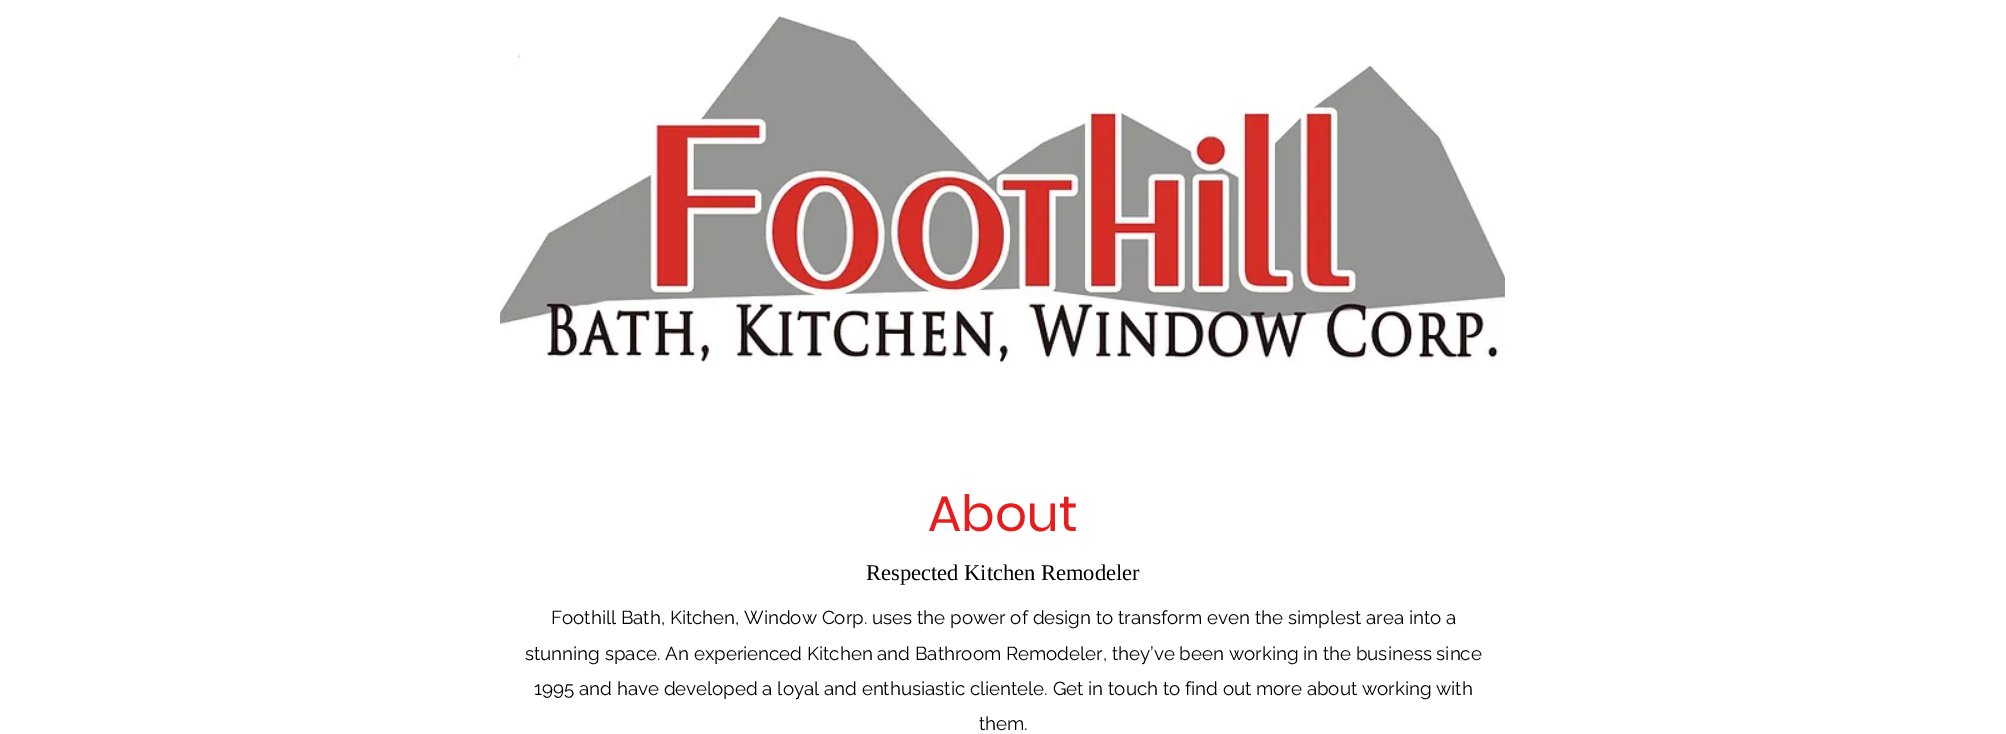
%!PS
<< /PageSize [2006 734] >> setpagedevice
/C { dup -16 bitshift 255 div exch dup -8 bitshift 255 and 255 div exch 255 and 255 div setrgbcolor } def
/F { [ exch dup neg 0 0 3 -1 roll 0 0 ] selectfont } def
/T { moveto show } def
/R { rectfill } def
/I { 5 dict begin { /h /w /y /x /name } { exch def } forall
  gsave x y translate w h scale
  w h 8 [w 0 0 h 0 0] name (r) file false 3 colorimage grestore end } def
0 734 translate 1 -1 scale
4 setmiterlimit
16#FFFFFF C
0 0 2006 734 R
(1.rgb) 500 16 1005 349 I
/Poppins-Regular 50 F
16#E71D1D C
(About) 928 531 T
/LiberationSerif-Regular 22.5 F
16#000000 C
(Respected Kitchen Remodeler) 866 580 T
/Raleway-Regular 18.75 F
(Foothill Bath, Kitchen, Window Corp. uses the power of design to transform even the simplest area into a) 551 624 T
(stunning space. An experienced Kitchen and Bathroom Remodeler, they’ve been working in the business since) 525 660 T
(1995 and have developed a loyal and enthusiastic clientele. Get in touch to find out more about working with) 534 695 T
(them.) 979 730 T
showpage
